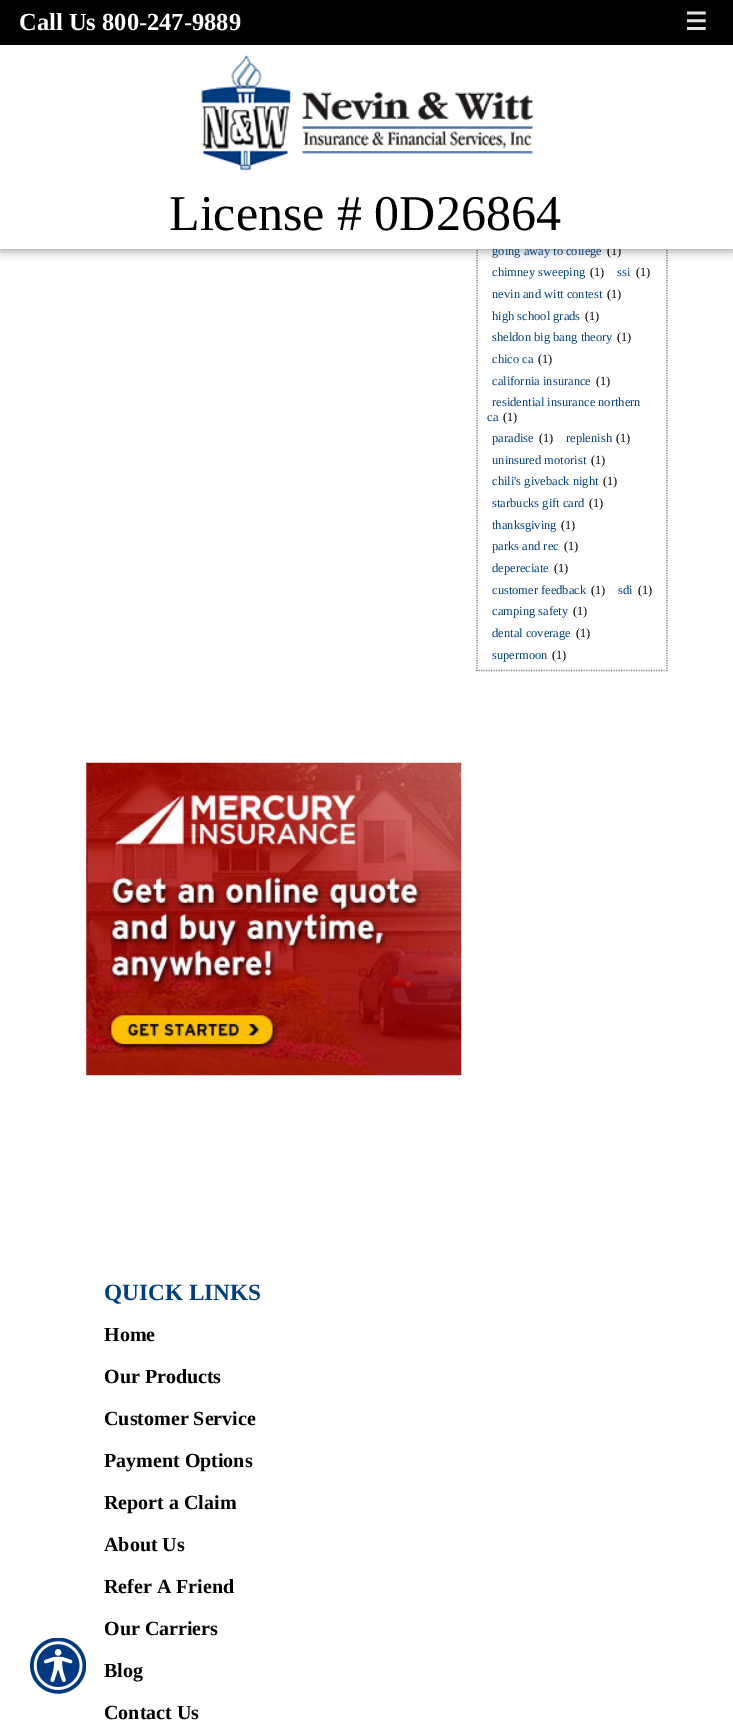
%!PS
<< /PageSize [733 1730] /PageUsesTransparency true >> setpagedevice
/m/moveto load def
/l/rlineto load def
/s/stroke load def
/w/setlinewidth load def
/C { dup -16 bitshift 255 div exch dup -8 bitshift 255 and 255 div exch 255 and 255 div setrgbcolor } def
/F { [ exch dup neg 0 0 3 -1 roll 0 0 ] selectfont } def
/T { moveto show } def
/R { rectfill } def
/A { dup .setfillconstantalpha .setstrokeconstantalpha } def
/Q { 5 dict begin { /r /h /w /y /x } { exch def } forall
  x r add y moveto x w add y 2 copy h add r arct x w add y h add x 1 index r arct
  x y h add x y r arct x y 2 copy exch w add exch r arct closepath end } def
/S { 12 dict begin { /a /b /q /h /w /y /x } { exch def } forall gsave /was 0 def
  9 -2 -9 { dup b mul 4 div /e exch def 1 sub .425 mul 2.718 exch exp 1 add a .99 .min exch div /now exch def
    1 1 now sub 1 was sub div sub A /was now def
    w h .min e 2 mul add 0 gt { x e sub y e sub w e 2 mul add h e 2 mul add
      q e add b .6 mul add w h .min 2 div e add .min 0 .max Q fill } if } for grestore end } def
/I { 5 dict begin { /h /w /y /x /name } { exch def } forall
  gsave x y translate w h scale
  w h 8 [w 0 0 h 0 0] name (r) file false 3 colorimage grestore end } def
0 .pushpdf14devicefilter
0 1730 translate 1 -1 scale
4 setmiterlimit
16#FFFFFF C
0 0 733 1730 R
16#7F7F7F C
1.2 w
[1.25 1.25] 0 setdash
667 -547.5 m 0 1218.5 l s
476 670.5 m 191.5 0 l s
477 -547.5 m 0 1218.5 l s
16#000000 C
0 0 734 249 0 6 .5 S
/LiberationSerif-Regular 12.5 F
16#003E7E C
(going away to college) 492 255 T
16#000000 C
(\(1\)) 607 255 T
16#FFFFFF C
0 45 733 204 R
16#000000 C
0 0 733 45 R
/LiberationSerif-Bold 24.5 F
16#FFFFFF C
(Call Us 800-247-9889) 19 30 T
/DejaVuSans-Bold 24.5 F
16#E2E2E2 C
(☰) 685 30 T
(1.rgb) 201 55 332 116 I
/LiberationSerif-Regular 50 F
16#000000 C
(License # 0D26864) 169 230 T
/LiberationSerif-Regular 12.5 F
16#003E7E C
(chimney sweeping) 492 276 T
16#000000 C
(\(1\)) 590 276 T
16#003E7E C
(ssi) 617 276 T
16#000000 C
(\(1\)) 636 276 T
16#003E7E C
(nevin and witt contest) 492 298 T
16#000000 C
(\(1\)) 607 298 T
16#003E7E C
(high school grads) 492 320 T
16#000000 C
(\(1\)) 585 320 T
16#003E7E C
(sheldon big bang theory) 492 341 T
16#000000 C
(\(1\)) 617 341 T
16#003E7E C
(chico ca) 492 363 T
16#000000 C
(\(1\)) 538 363 T
16#003E7E C
(california insurance) 492 385 T
16#000000 C
(\(1\)) 596 385 T
16#003E7E C
(residential insurance northern) 492 406 T
(ca) 487 421 T
16#000000 C
(\(1\)) 503 421 T
16#003E7E C
(paradise) 492 442 T
16#000000 C
(\(1\)) 539 442 T
16#003E7E C
(replenish) 566 442 T
16#000000 C
(\(1\)) 616 442 T
16#003E7E C
(uninsured motorist) 492 464 T
16#000000 C
(\(1\)) 591 464 T
16#003E7E C
(chili's giveback night) 492 485 T
16#000000 C
(\(1\)) 603 485 T
16#003E7E C
(starbucks gift card) 492 507 T
16#000000 C
(\(1\)) 589 507 T
16#003E7E C
(thanksgiving) 492 529 T
16#000000 C
(\(1\)) 561 529 T
16#003E7E C
(parks and rec) 492 550 T
16#000000 C
(\(1\)) 564 550 T
16#003E7E C
(depereciate) 492 572 T
16#000000 C
(\(1\)) 554 572 T
16#003E7E C
(customer feedback) 492 594 T
16#000000 C
(\(1\)) 591 594 T
16#003E7E C
(sdi) 618 594 T
16#000000 C
(\(1\)) 638 594 T
16#003E7E C
(camping safety) 492 615 T
16#000000 C
(\(1\)) 573 615 T
16#003E7E C
(dental coverage) 492 637 T
16#000000 C
(\(1\)) 576 637 T
16#003E7E C
(supermoon) 492 659 T
16#000000 C
(\(1\)) 552 659 T
(2.rgb) 86 762 376 314 I
/LiberationSerif-Bold 23.25 F
16#003E7E C
(QUICK LINKS) 104 1300 T
/LiberationSerif-Bold 20 F
16#000000 C
(Home) 104 1341 T
(Our Products) 104 1383 T
(Customer Service) 104 1425 T
(Payment Options) 104 1467 T
(Report a Claim) 104 1509 T
(About Us) 104 1551 T
(Refer A Friend) 104 1593 T
(Our Carriers) 104 1635 T
(Blog) 104 1677 T
(Contact Us) 104 1719 T
(3.rgb) 30 1638 56 56 I
.poppdf14devicefilter showpage
